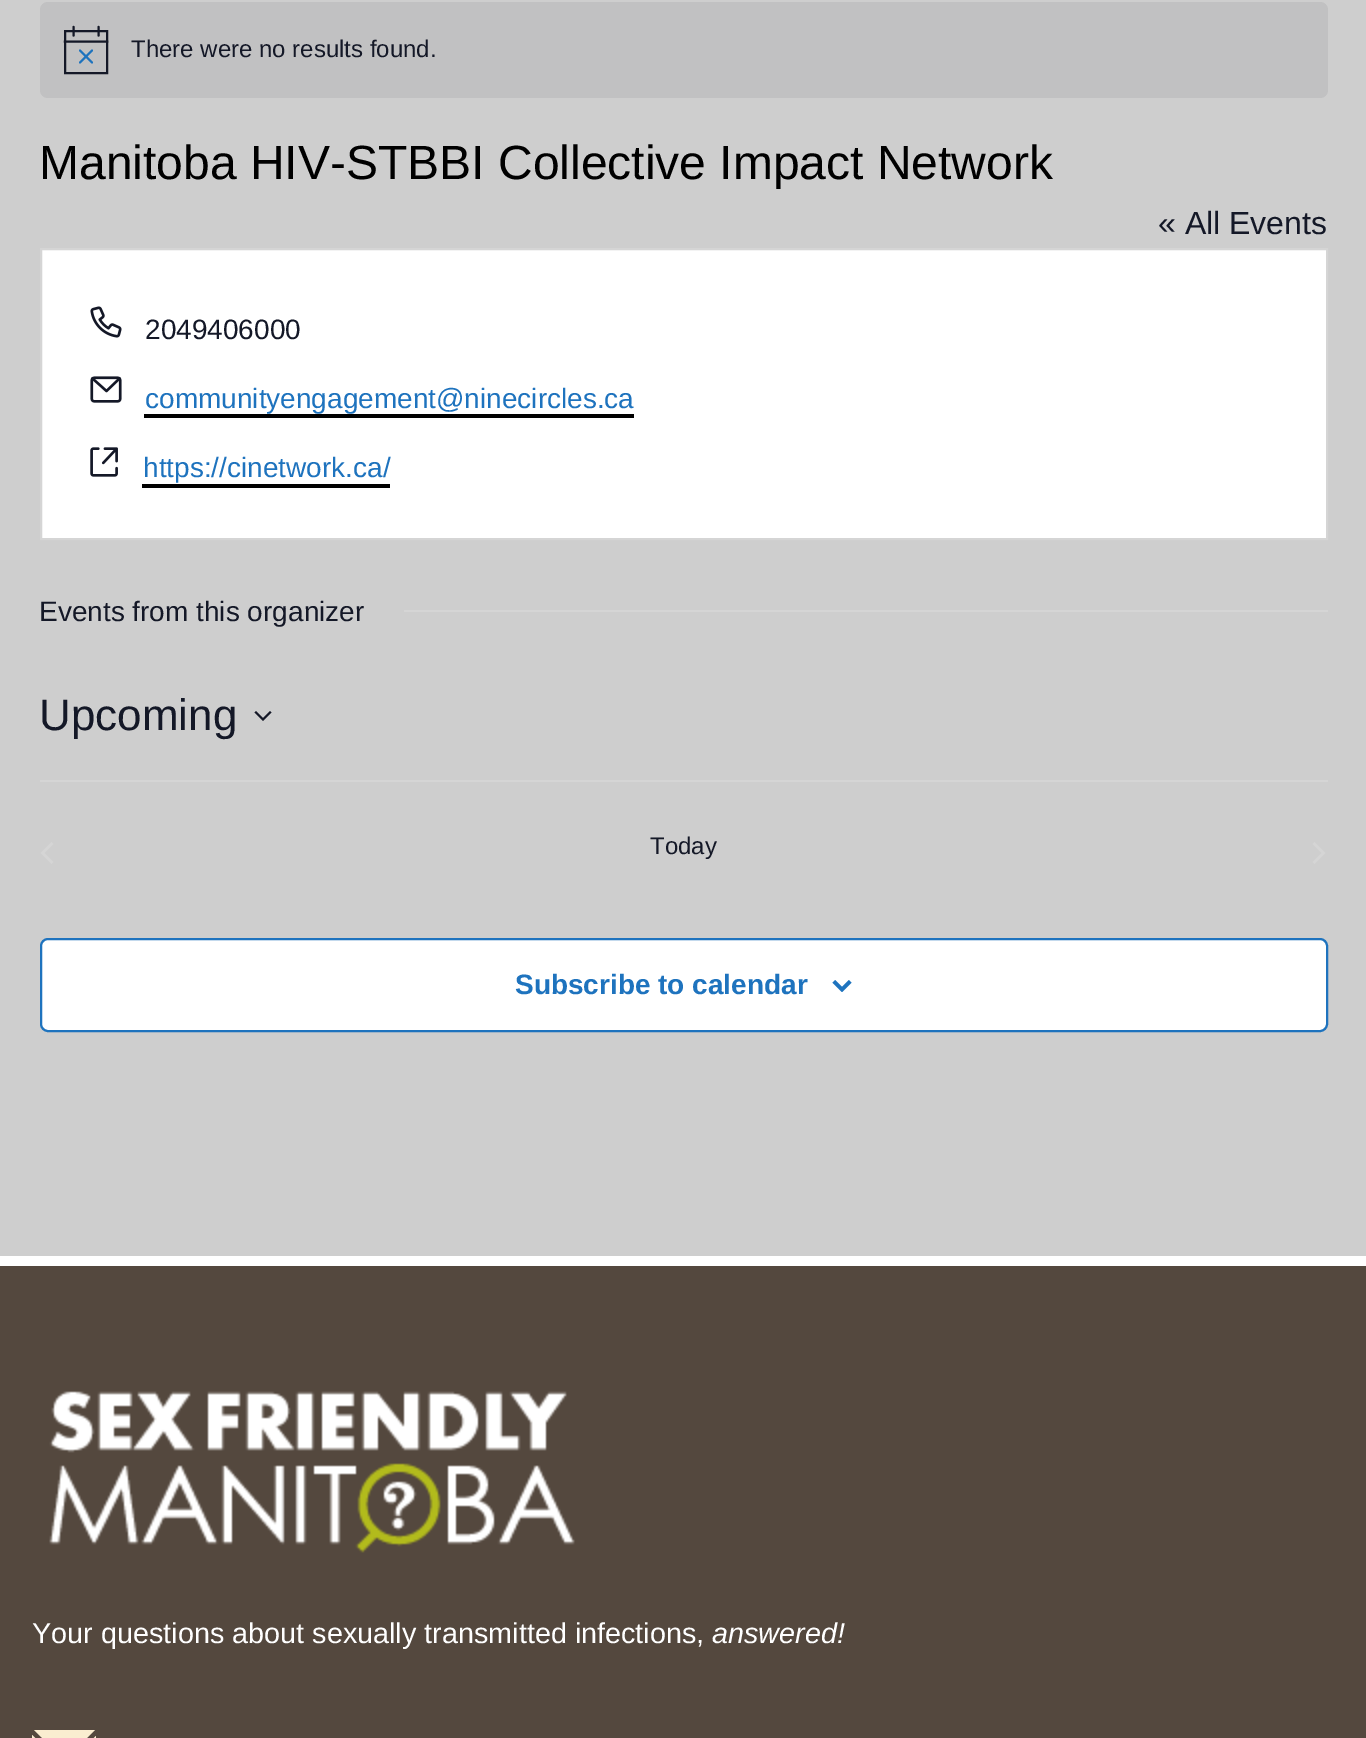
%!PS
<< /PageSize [1366 1738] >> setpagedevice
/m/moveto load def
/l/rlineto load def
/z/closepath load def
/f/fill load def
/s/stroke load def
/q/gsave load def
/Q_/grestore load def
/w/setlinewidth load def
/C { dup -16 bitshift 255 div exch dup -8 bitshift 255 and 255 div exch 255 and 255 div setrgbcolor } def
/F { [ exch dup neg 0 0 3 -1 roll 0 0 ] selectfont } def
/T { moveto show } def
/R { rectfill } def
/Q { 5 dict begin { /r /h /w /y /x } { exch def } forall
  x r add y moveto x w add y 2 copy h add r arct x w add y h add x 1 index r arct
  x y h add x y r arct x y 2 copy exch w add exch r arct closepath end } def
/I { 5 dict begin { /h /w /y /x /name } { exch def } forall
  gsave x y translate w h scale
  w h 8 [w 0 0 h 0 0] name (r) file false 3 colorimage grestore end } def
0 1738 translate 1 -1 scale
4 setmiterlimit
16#FFFFFF C
0 0 1366 1738 R
16#CECECE C
0 0 1366 1256 R
16#C1C1C2 C
40 2 1288 96 8 Q f
16#141827 C
2.1 w
65 31 m 42 0 l 0 42 l -42 0 l z s
16#1E73BE C
1 setlinecap
80 50.5 m 12 12 l 92 50.5 m -12 12 l s
16#141827 C
73.5 27 m 0 8.5 l 98.5 27 m 0 8.5 l s
2 setlinecap
65 41.5 m 42 0 l s
/LiberationSans-Regular 24 F
(There were no results found.) 131 57 T
/LiberationSans-Regular 48 F
16#000000 C
(Manitoba HIV-STBBI Collective Impact Network) 39 179 T
/LiberationSans-Regular 32 F
16#141827 C
(« All Events) 1158 234 T
16#FFFFFF C
41 249 m 1286 0 l 0 290 l -1286 0 l z q f Q_
16#D5D5D5 C
2 w
0 setlinecap
s
(1.rgb) 90 306 32 32 I
/LiberationSans-Regular 28 F
16#141827 C
(2049406000) 145 339 T
(2.rgb) 90 376 32 27 I
16#1E73BE C
(communityengagement@ninecircles.ca) 145 408 T
16#000000 C
144 414 490 4 R
(3.rgb) 90 447 28 30 I
16#1E73BE C
(https://cinetwork.ca/) 143 477 T
16#000000 C
142 484 248 4 R
16#141827 C
(Events from this organizer) 39 621 T
16#D5D5D5 C
404 610 924 2 R
/LiberationSans-Regular 44 F
16#141827 C
(Upcoming) 39 730 T
256 711 m 7 7 l 7 -7 l 1.5 1.5 l -8.5 8.5 l -8.5 -8.5 l z eofill
16#D5D5D5 C
40 780 1288 2 R
53.5 862 m -2 2 l -11 -11 l 11 -11 l 2 2 l -9 9 l z f
/LiberationSans-Regular 24 F
16#141827 C
(Today) 650 854 T
16#D5D5D5 C
1312.5 844 m 2 -2 l 11 11 l -11 11 l -2 -2 l 9 -9 l z f
16#FFFFFF C
41 939 1286 92 7 Q q f Q_
16#1E73BE C
s
/LiberationSans-Bold 28 F
(Subscribe to calendar) 515 994 T
(4.rgb) 832 980 20 12 I
16#54483E C
0 1266 1366 472 R
(5.rgb) 49 1391 526 162 I
/LiberationSans-Regular 28.8 F
16#FFFFFF C
(Your questions about sexually transmitted infections,) 32 1643 T
/LiberationSans-Italic 28.8 F
(answered!) 712 1643 T
16#FAEDD0 C
95 1730 m -61 0 l 31 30 l z f
65 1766 m -33 -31 l 0 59 l 64 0 l 0 -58 l z f
showpage
